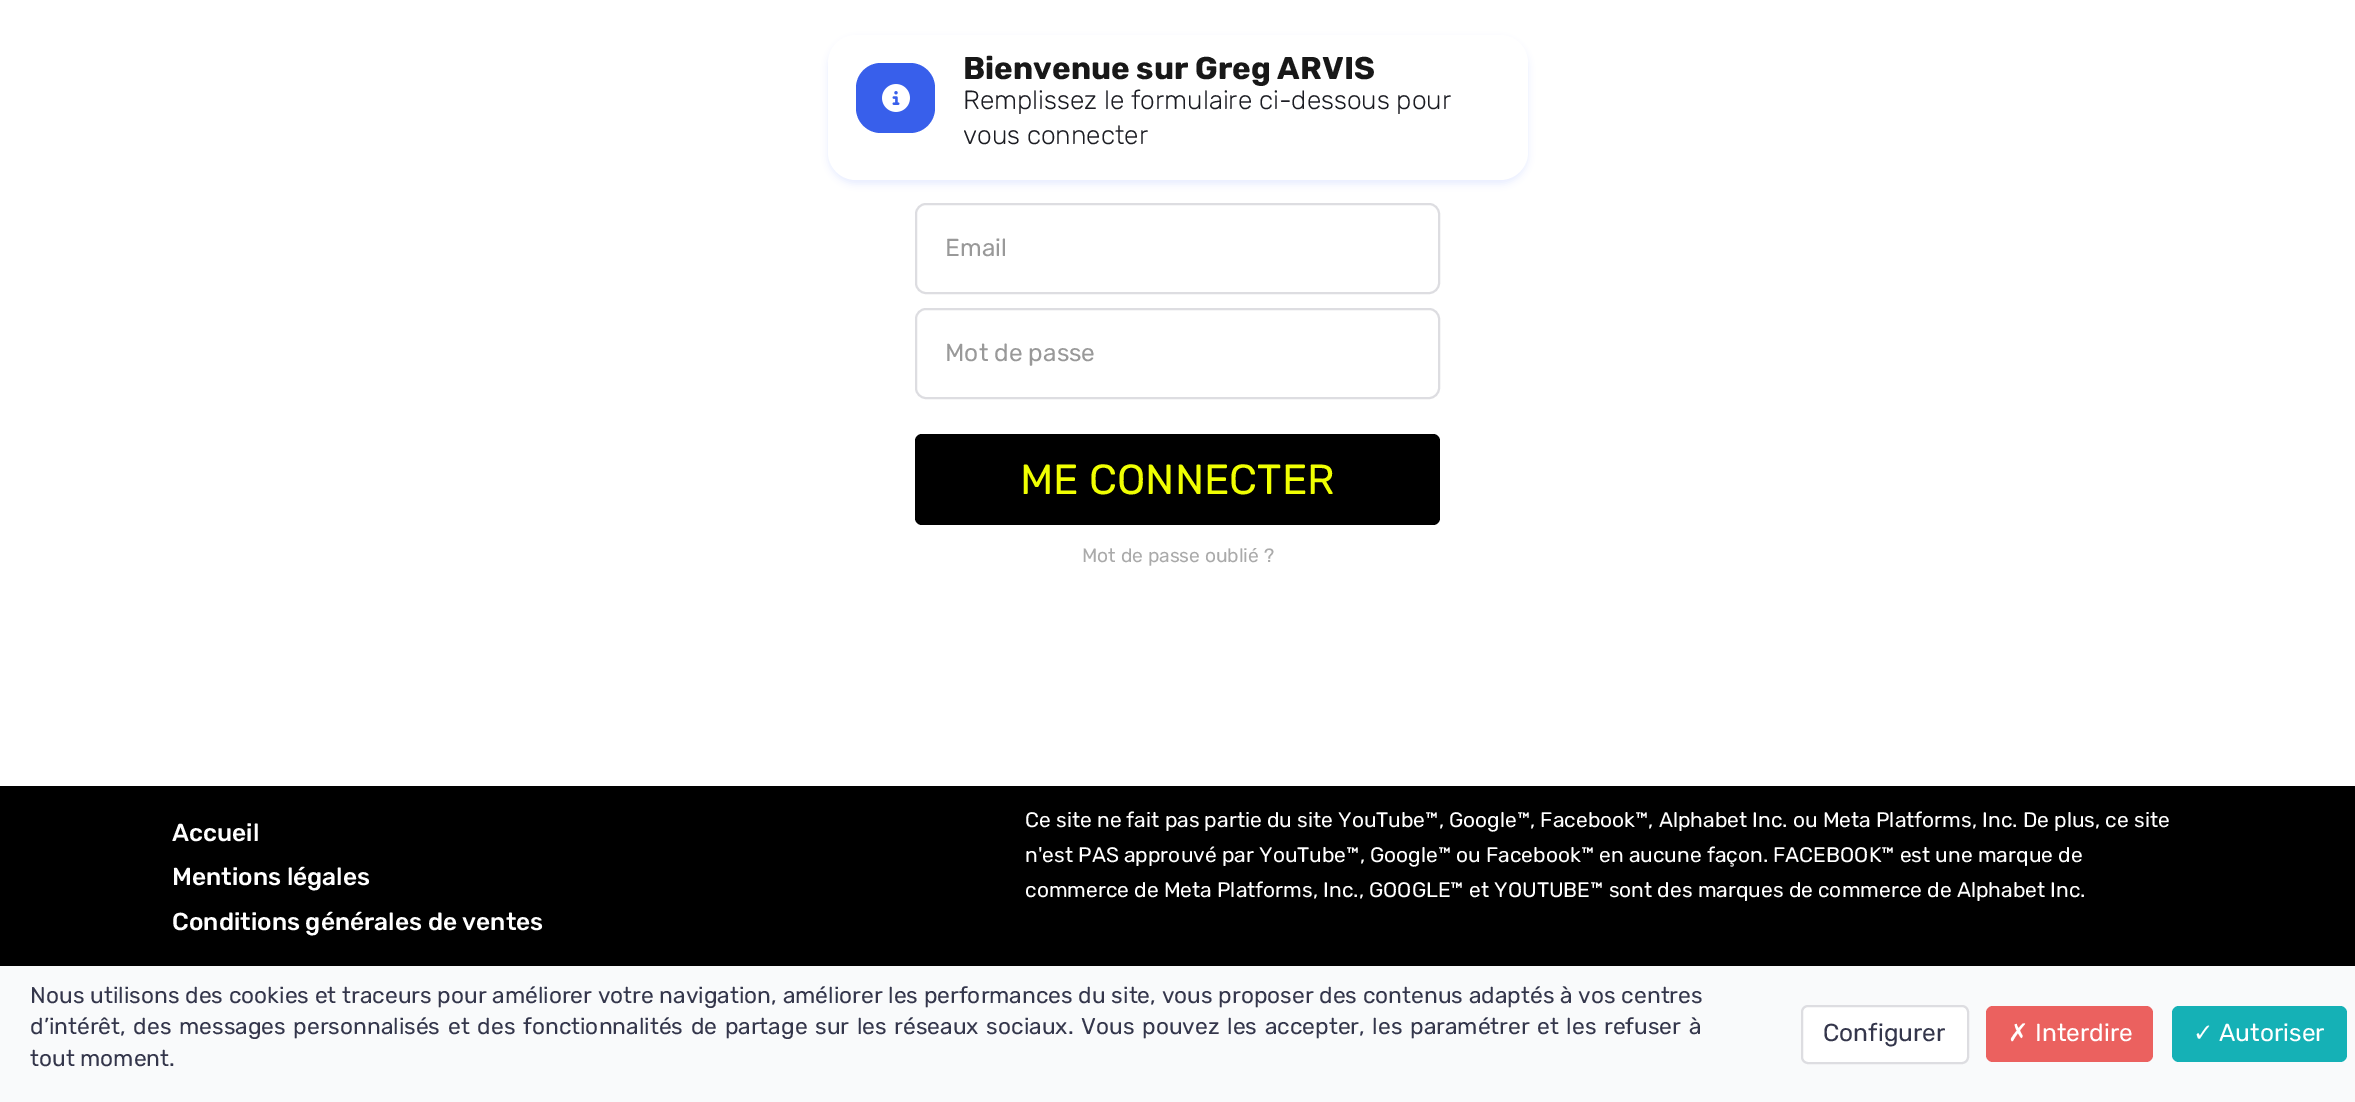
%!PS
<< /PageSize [2355 1102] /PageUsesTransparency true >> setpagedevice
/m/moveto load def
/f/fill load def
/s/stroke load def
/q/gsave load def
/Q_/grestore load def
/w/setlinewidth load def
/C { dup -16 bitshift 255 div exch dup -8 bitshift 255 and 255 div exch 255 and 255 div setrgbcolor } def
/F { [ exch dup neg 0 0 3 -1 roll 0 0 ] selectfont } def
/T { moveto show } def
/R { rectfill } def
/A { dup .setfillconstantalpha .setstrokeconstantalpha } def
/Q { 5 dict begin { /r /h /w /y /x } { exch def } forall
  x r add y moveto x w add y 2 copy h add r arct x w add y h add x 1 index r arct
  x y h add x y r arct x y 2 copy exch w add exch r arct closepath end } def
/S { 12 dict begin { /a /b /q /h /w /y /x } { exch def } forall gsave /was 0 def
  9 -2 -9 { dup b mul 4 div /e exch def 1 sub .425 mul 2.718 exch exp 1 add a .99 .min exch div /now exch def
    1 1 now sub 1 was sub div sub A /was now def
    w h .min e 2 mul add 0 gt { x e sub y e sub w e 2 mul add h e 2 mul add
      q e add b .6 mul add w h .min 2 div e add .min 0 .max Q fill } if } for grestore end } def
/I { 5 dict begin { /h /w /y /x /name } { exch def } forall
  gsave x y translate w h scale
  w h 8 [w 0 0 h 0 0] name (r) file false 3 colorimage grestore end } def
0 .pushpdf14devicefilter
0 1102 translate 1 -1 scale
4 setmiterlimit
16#FFFFFF C
0 0 2355 1102 R
16#E8EDFF C
828 39 700 145 28 3.5 1 S
16#FFFFFF C
828 35 700 145 28 Q f
16#385FEB C
856 63 79 70 25 Q f
(1.rgb) 882 84 28 28 I
/Rubik-Bold 31.5 F
16#181818 C
(Bienvenue sur Greg ARVIS) 963 79 T
/Rubik-Light 26.25 F
16#1C1D23 C
(Remplissez le formulaire ci-dessous pour) 963 109 T
(vous connecter) 963 144 T
16#DDDDE1 C
2 w
916 204 523 89 10 Q s
/Rubik-Regular 24.5 F
16#999999 C
(Email) 945 256 T
16#DDDDE1 C
916 309 523 89 10 Q s
16#999999 C
(Mot de passe) 945 361 T
16#000000 C
915 434 525 91 7 Q f
/Rubik-Regular 42 F
16#F0FF02 C
(ME CONNECTER) 1020 494 T
/Rubik-Regular 19.25 F
16#AAAAAA C
(Mot de passe oublié ?) 1082 562 T
16#000000 C
0 786 2355 180 R
/Rubik-Medium 24.5 F
16#FFFFFF C
(Accueil) 172 841 T
(Mentions légales) 172 885 T
(Conditions générales de ventes) 172 930 T
/Rubik-Regular 21 F
(Ce site ne fait pas partie du site YouTube™, Google™, Facebook™, Alphabet Inc. ou Meta Platforms, Inc. De plus, ce site) 1025 827 T
(n'est PAS approuvé par YouTube™, Google™ ou Facebook™ en aucune façon. FACEBOOK™ est une marque de) 1025 862 T
(commerce de Meta Platforms, Inc., GOOGLE™ et YOUTUBE™ sont des marques de commerce de Alphabet Inc.) 1025 897 T
16#F9FAFB C
0 966 2355 136 R
/Rubik-Regular 22.75 F
16#34364B C
30 1003 m .25 0 32 (Nous utilisons des cookies et traceurs pour améliorer votre navigation, améliorer les performances du site, vous proposer des contenus adaptés à vos centres) widthshow
30 1034 m 2.2 0 32 (d’intérêt, des messages personnalisés et des fonctionnalités de partage sur les réseaux sociaux. Vous pouvez les accepter, les paramétrer et les refuser à) widthshow
(tout moment.) 30 1066 T
16#FFFFFF C
1802 1006 166 57 6 Q q f Q_
16#DDDDE1 C
s
/Rubik-Regular 24.5 F
16#34364B C
(Configurer) 1823 1041 T
16#EB615F C
1986 1006 167 56 7 Q f
/DejaVuSans-Regular 24.5 F
16#FFFFFF C
(✗) 2008 1041 T
/Rubik-Regular 24.5 F
(Interdire) 2035 1041 T
16#15B1B6 C
2172 1006 175 56 7 Q f
/DejaVuSans-Regular 24.5 F
16#FFFFFF C
(✓) 2193 1041 T
/Rubik-Regular 24.5 F
(Autoriser) 2219 1041 T
.poppdf14devicefilter showpage
